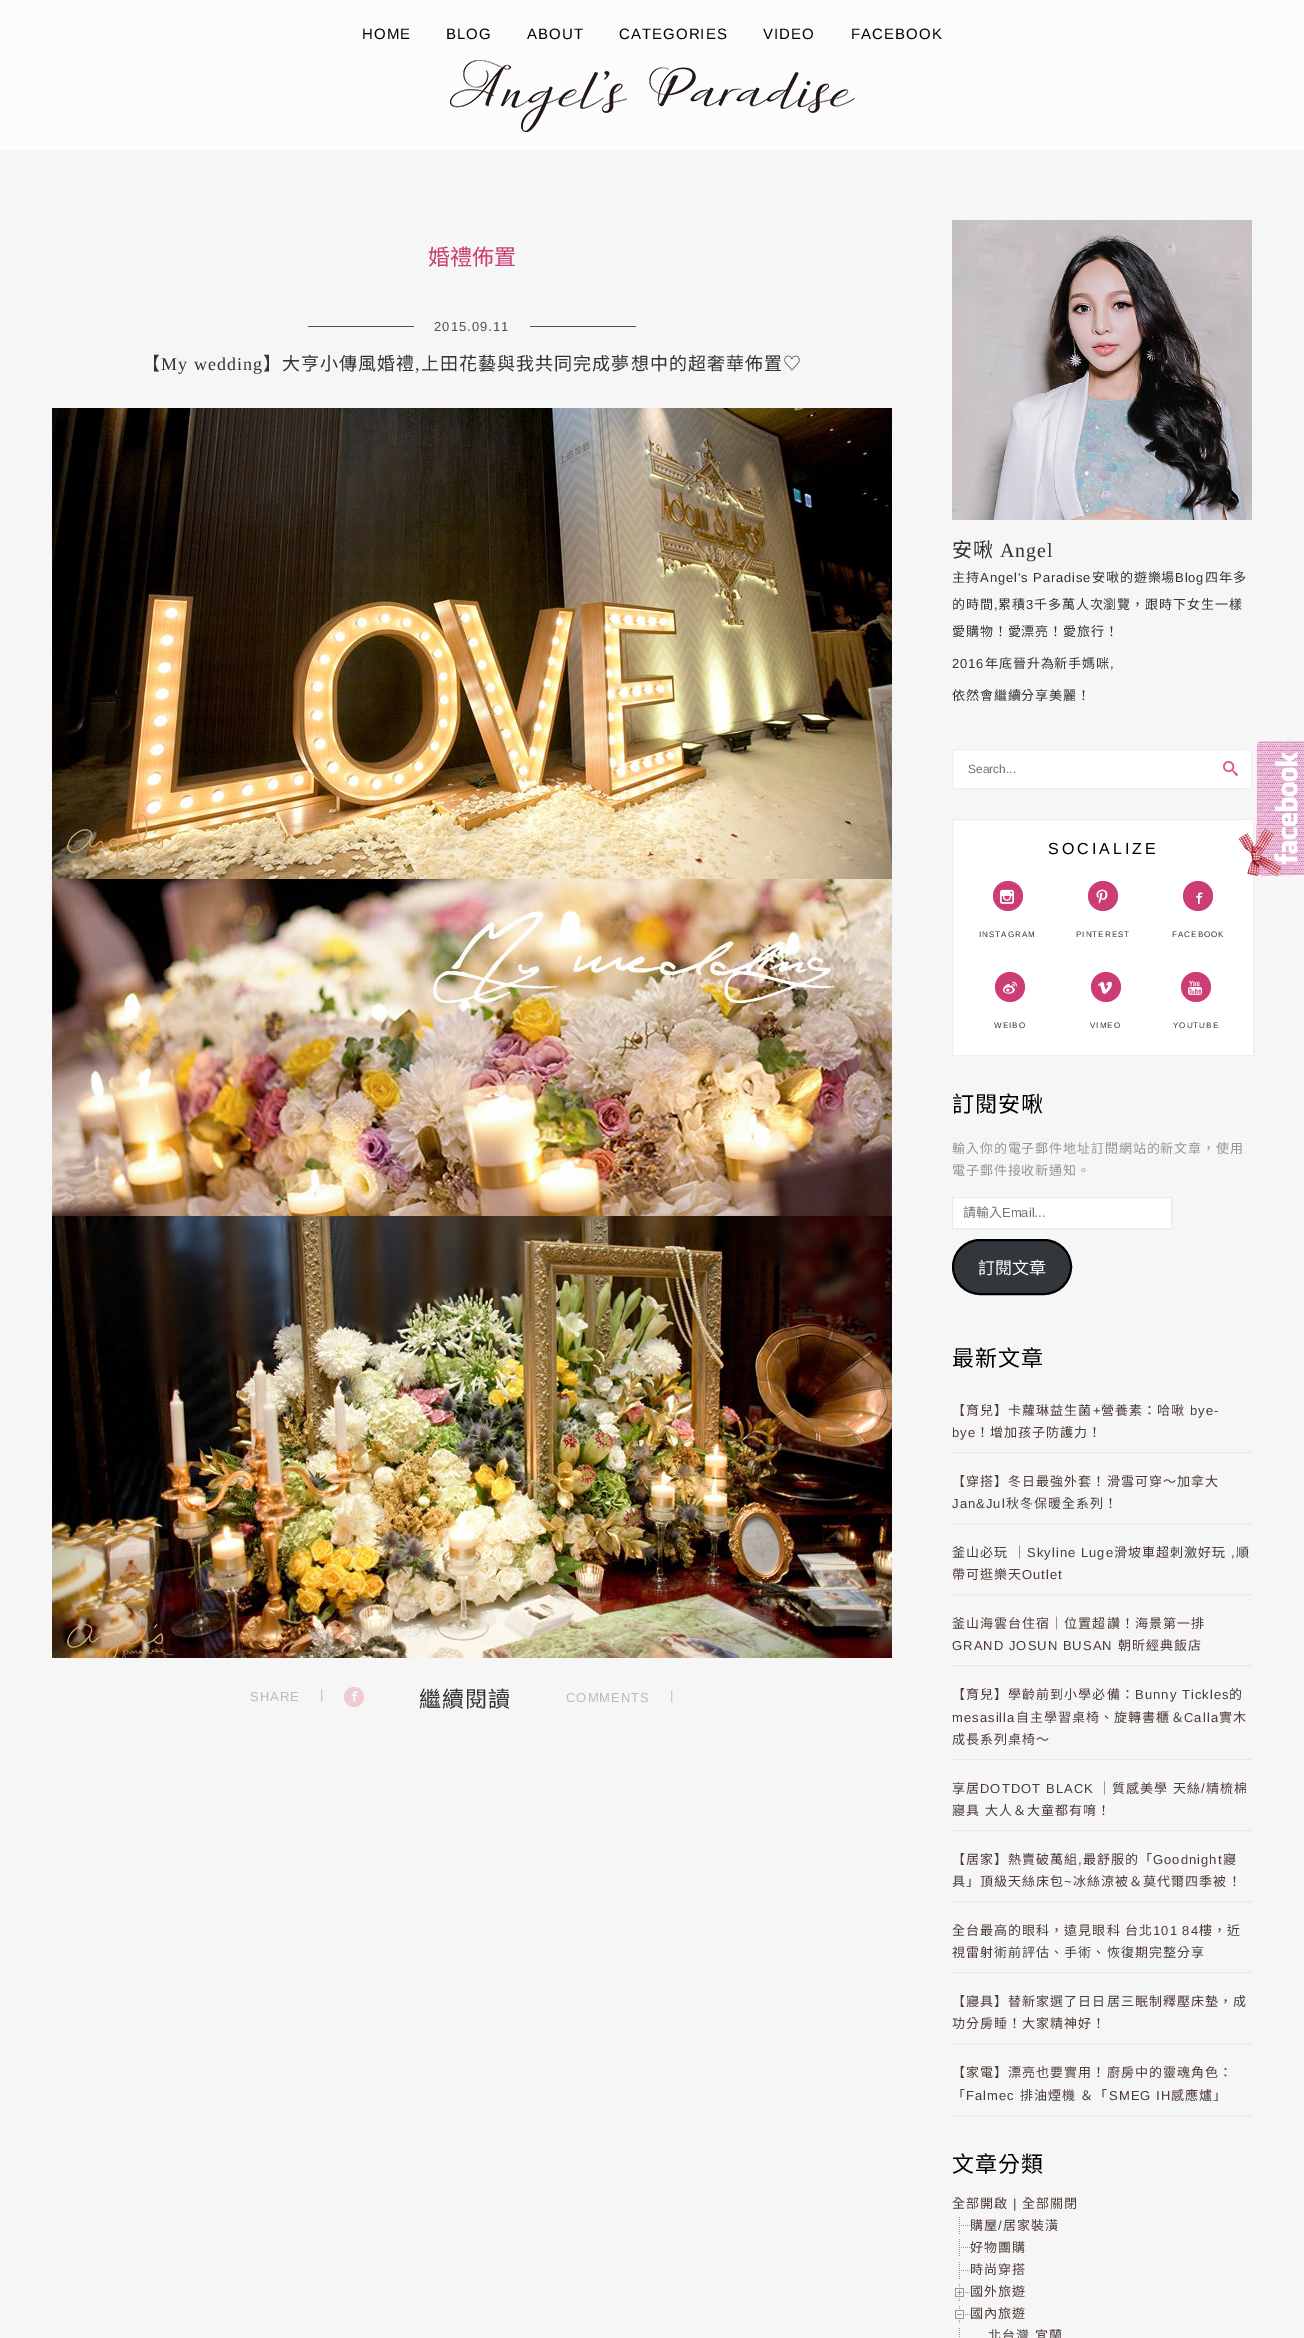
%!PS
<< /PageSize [1304 2338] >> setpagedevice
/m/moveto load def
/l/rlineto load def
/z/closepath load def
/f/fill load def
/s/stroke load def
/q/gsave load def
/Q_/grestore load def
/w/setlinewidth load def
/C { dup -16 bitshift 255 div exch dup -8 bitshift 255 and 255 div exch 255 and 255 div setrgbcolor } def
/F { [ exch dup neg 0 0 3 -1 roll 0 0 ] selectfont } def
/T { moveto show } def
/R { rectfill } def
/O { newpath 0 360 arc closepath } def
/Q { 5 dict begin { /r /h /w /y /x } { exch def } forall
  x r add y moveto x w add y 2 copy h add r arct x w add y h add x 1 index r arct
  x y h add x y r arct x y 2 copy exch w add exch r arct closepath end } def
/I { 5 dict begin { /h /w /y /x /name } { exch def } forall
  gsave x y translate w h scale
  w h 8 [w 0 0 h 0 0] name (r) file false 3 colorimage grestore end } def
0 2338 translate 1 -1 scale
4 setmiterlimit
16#F6F6F6 C
0 0 1304 2338 R
16#FCFCFC C
0 0 1304 150 R
/LiberationSans-Regular 15 F
16#000000 C
362 39 m 1.05 0 (HOME) ashow
446 39 m 1.05 0 (BLOG) ashow
527 39 m 1.05 0 (ABOUT) ashow
619 39 m 1.05 0 (CATEGORIES) ashow
763 39 m 1.05 0 (VIDEO) ashow
851 39 m 1.05 0 (FACEBOOK) ashow
(1.rgb) 450 60 405 72 I
/NotoSansCJKTC-Regular 22 F
16#CC3C75 C
(婚禮佈置) 428 265 T
16#525050 C
308 326 328 1 R
16#F6F6F6 C
414 326 116 1 R
/LiberationSans-Regular 13 F
16#525050 C
434 331 m 1.05 0 (2015.09.11) ashow
/NotoSansCJKTC-Regular 18 F
16#333333 C
142 370 m 1.05 0 (【) ashow
/LiberationSerif-Regular 18 F
161 370 m 1.05 0 (My wedding) ashow
/NotoSansCJKTC-Regular 18 F
263 370 m 1.05 0 (】大亨小傳風婚禮) ashow
/LiberationSerif-Regular 18 F
415 370 m 1.05 0 (,) ashow
/NotoSansCJKTC-Regular 18 F
421 370 m 1.05 0 (上田花藝與我共同完成夢想中的超奢華佈置♡) ashow
(2.rgb) 52 408 840 1250 I
/LiberationSans-Regular 13 F
16#BABABA C
250 1701 m 1.05 0 (SHARE) ashow
320 1699 m 1.05 0 (|) ashow
16#EFCCD0 C
354 1697 10 O f
(3.rgb) 351 1691 7 11 I
/NotoSansCJKTC-Regular 22 F
16#333333 C
419 1707 m 1.05 0 (繼續閱讀) ashow
/LiberationSans-Regular 13 F
16#BABABA C
566 1702 m 1.05 0 (COMMENTS) ashow
670 1700 m 1.05 0 (|) ashow
(4.rgb) 952 220 300 300 I
/NotoSansCJKTC-Regular 20 F
16#333333 C
952 557 m 1 0 (安啾) ashow
/LiberationSerif-Regular 20 F
1000 557 m 1 0 (Angel) ashow
/NotoSansCJKTC-Regular 13 F
952 582 m .9 0 (主持) ashow
/LiberationSans-Regular 13 F
980 582 m .9 0 (Angel's Paradise) ashow
/NotoSansCJKTC-Regular 13 F
1092 582 m .9 0 (安啾的遊樂場) ashow
/LiberationSans-Regular 13 F
1175 582 m .9 0 (Blog) ashow
/NotoSansCJKTC-Regular 13 F
1205 582 m .9 0 (四年多) ashow
952 609 m .9 0 (的時間) ashow
/LiberationSans-Regular 13 F
994 609 m .9 0 (,) ashow
/NotoSansCJKTC-Regular 13 F
998 609 m .9 0 (累積) ashow
/LiberationSans-Regular 13 F
1026 609 m .9 0 (3) ashow
/NotoSansCJKTC-Regular 13 F
1034 609 m .9 0 (千多萬人次瀏覽，跟時下女生一樣) ashow
952 636 m .9 0 (愛購物！愛漂亮！愛旅行！) ashow
/LiberationSans-Regular 13 F
952 668 m .9 0 (2016) ashow
/NotoSansCJKTC-Regular 13 F
985 668 m .9 0 (年底晉升為新手媽咪) ashow
/LiberationSans-Regular 13 F
1110 668 m .9 0 (,) ashow
/NotoSansCJKTC-Regular 13 F
952 700 m .9 0 (依然會繼續分享美麗！) ashow
16#FFFFFF C
952.5 749.5 299 39 2.5 Q q f Q_
16#EEEEED C
s
/LiberationSans-Regular 12 F
16#757575 C
(Search...) 968 773 T
(5.rgb) 1223 760 15 16 I
16#FFFFFF C
952.5 819.5 m 301 0 l 0 236 l -301 0 l z q f Q_
16#EEEEED C
s
/LiberationSans-Regular 16 F
16#000000 C
1048 854 m 3 0 (SOCIALIZE) ashow
16#CC3C75 C
1008 896 15 O f
(6.rgb) 1000 889 14 15 I
/LiberationSans-Regular 8 F
16#333333 C
979 937 m 1.05 0 (INSTAGRAM) ashow
16#CC3C75 C
1103 896 15 O f
(7.rgb) 1096 889 12 15 I
16#333333 C
1076 937 m 1.05 0 (PINTEREST) ashow
16#CC3C75 C
1198 896 15 O f
(8.rgb) 1196 892 7 12 I
16#333333 C
1172 937 m 1.05 0 (FACEBOOK) ashow
16#CC3C75 C
1010 987 15 O f
(9.rgb) 1003 981 14 13 I
16#333333 C
994 1028 m 1.05 0 (WEIBO) ashow
16#CC3C75 C
1106 987 15 O f
(10.rgb) 1098 981 14 13 I
16#333333 C
1090 1028 m 1.05 0 (VIMEO) ashow
16#CC3C75 C
1196 987 15 O f
(11.rgb) 1188 980 14 15 I
16#333333 C
1173 1028 m 1.05 0 (YOUTUBE) ashow
/NotoSansCJKTC-Regular 22 F
16#000000 C
952 1112 m 1 0 (訂閱安啾) ashow
/NotoSansCJKTC-Regular 13 F
16#959595 C
952 1153 m .9 0 (輸入你的電子郵件地址訂閱網站的新文章，使用) ashow
952 1175 m .9 0 (電子郵件接收新通知。) ashow
16#FFFFFF C
952.5 1197.5 m 219 0 l 0 31 l -219 0 l z q f Q_
16#EBEBEB C
s
16#757575 C
(請輸入) 963 1217 T
/LiberationSans-Regular 13 F
(Email...) 1002 1217 T
16#32373C C
953 1240 118 54 27 Q q f Q_
16#000000 C
2 w
s
/NotoSansCJKTC-Regular 17 F
16#FFFFFF C
(訂閱文章) 978 1274 T
/NotoSansCJKTC-Regular 22 F
16#000000 C
952 1366 m 1 0 (最新文章) ashow
16#DDDDDD C
1 w
[1 1] 0 setdash
952 1452.5 m 300 0 l s
/NotoSansCJKTC-Regular 13 F
16#4C3B37 C
952 1415 m 1.05 0 (【育兒】卡蘿琳益生菌) ashow
/LiberationSans-Regular 13 F
1093 1415 m 1.05 0 (+) ashow
/NotoSansCJKTC-Regular 13 F
1101 1415 m 1.05 0 (營養素：哈啾) ashow
/LiberationSans-Regular 13 F
1190 1415 m 1.05 0 (bye-) ashow
952 1437 m 1.05 0 (bye) ashow
/NotoSansCJKTC-Regular 13 F
976 1437 m 1.05 0 (！增加孩子防護力！) ashow
16#DDDDDD C
952 1523.5 m 300 0 l s
16#4C3B37 C
952 1486 m 1.05 0 (【穿搭】冬日最強外套！滑雪可穿～加拿大) ashow
/LiberationSans-Regular 13 F
952 1508 m 1.05 0 (Jan&Jul) ashow
/NotoSansCJKTC-Regular 13 F
1006 1508 m 1.05 0 (秋冬保暖全系列！) ashow
16#DDDDDD C
952 1594.5 m 300 0 l s
16#4C3B37 C
952 1557 m 1.05 0 (釜山必玩) ashow
1013 1557 m 1.05 0 (｜) ashow
/LiberationSans-Regular 13 F
1027 1557 m 1.05 0 (Skyline Luge) ashow
/NotoSansCJKTC-Regular 13 F
1114 1557 m 1.05 0 (滑坡車超刺激好玩) ashow
/LiberationSans-Regular 13 F
1231 1557 m 1.05 0 (,) ashow
/NotoSansCJKTC-Regular 13 F
1236 1557 m 1.05 0 (順) ashow
952 1579 m 1.05 0 (帶可逛樂天) ashow
/LiberationSans-Regular 13 F
1022 1579 m 1.05 0 (Outlet) ashow
16#DDDDDD C
952 1665.5 m 300 0 l s
/NotoSansCJKTC-Regular 13 F
16#4C3B37 C
952 1628 m 1.05 0 (釜山海雲台住宿｜位置超讚！海景第一排) ashow
/LiberationSans-Regular 13 F
952 1650 m 1.05 0 (GRAND JOSUN BUSAN) ashow
/NotoSansCJKTC-Regular 13 F
1118 1650 m 1.05 0 (朝昕經典飯店) ashow
16#DDDDDD C
952 1759.5 m 300 0 l s
16#4C3B37 C
952 1699 m 1.05 0 (【育兒】學齡前到小學必備：) ashow
/LiberationSans-Regular 13 F
1135 1699 m 1.05 0 (Bunny Tickles) ashow
/NotoSansCJKTC-Regular 13 F
1229 1699 m 1.05 0 (的) ashow
/LiberationSans-Regular 13 F
952 1722 m 1.05 0 (mesasilla) ashow
/NotoSansCJKTC-Regular 13 F
1016 1722 m 1.05 0 (自主學習桌椅、旋轉書櫃＆) ashow
/LiberationSans-Regular 13 F
1184 1722 m 1.05 0 (Calla) ashow
/NotoSansCJKTC-Regular 13 F
1219 1722 m 1.05 0 (實木) ashow
952 1744 m 1.05 0 (成長系列桌椅～) ashow
16#DDDDDD C
952 1830.5 m 300 0 l s
16#4C3B37 C
952 1793 m 1.05 0 (享居) ashow
/LiberationSans-Regular 13 F
980 1793 m 1.05 0 (DOTDOT BLACK) ashow
/NotoSansCJKTC-Regular 13 F
1098 1793 m 1.05 0 (｜質感美學) ashow
1173 1793 m 1.05 0 (天絲) ashow
/LiberationSans-Regular 13 F
1201 1793 m 1.05 0 (/) ashow
/NotoSansCJKTC-Regular 13 F
1206 1793 m 1.05 0 (精梳棉) ashow
952 1815 m 1 0 32 1.05 0 (寢具 大人＆大童都有唷！) awidthshow
16#DDDDDD C
952 1901.5 m 300 0 l s
16#4C3B37 C
952 1864 m 1.05 0 (【居家】熱賣破萬組) ashow
/LiberationSans-Regular 13 F
1078 1864 m 1.05 0 (,) ashow
/NotoSansCJKTC-Regular 13 F
1083 1864 m 1.05 0 (最舒服的「) ashow
/LiberationSans-Regular 13 F
1153 1864 m 1.05 0 (Goodnight) ashow
/NotoSansCJKTC-Regular 13 F
1223 1864 m 1.05 0 (寢) ashow
952 1886 m 1.05 0 (具」頂級天絲床包) ashow
/LiberationSans-Regular 13 F
1064 1886 m 1.05 0 (~) ashow
/NotoSansCJKTC-Regular 13 F
1073 1886 m 1.05 0 (冰絲涼被＆莫代爾四季被！) ashow
16#DDDDDD C
952 1972.5 m 300 0 l s
16#4C3B37 C
952 1935 m 1.05 0 (全台最高的眼科，遠見眼科) ashow
1125 1935 m 1.05 0 (台北) ashow
/LiberationSans-Regular 13 F
1153 1935 m 1.05 0 (101 84) ashow
/NotoSansCJKTC-Regular 13 F
1199 1935 m 1.05 0 (樓，近) ashow
952 1957 m 1.05 0 (視雷射術前評估、手術、恢復期完整分享) ashow
16#DDDDDD C
952 2043.5 m 300 0 l s
16#4C3B37 C
952 2006 m 1.05 0 (【寢具】替新家選了日日居三眠制釋壓床墊，成) ashow
952 2028 m 1.05 0 (功分房睡！大家精神好！) ashow
16#DDDDDD C
952 2115.5 m 300 0 l s
16#4C3B37 C
952 2077 m 1.05 0 (【家電】漂亮也要實用！廚房中的靈魂角色：) ashow
952 2100 m 1.05 0 (「) ashow
/LiberationSans-Regular 13 F
966 2100 m 1.05 0 (Falmec) ashow
/NotoSansCJKTC-Regular 13 F
1020 2100 m 1.05 0 (排油煙機) ashow
1080 2100 m 1.05 0 (＆「) ashow
/LiberationSans-Regular 13 F
1109 2100 m 1.05 0 (SMEG IH) ashow
/NotoSansCJKTC-Regular 13 F
1171 2100 m 1.05 0 (感應爐」) ashow
/NotoSansCJKTC-Regular 22 F
16#000000 C
952 2172 m 1 0 (文章分類) ashow
/NotoSansCJKTC-Regular 13 F
16#4C3B37 C
952 2208 m 1 0 (全部開啟) ashow
/LiberationSans-Regular 13 F
16#333333 C
1013 2208 m 1 0 (|) ashow
/NotoSansCJKTC-Regular 13 F
16#4C3B37 C
1022 2208 m 1 0 (全部關閉) ashow
(12.rgb) 959 2217 11 17 I
970 2230 m 1 0 (購屋) ashow
/LiberationSans-Regular 13 F
998 2230 m 1 0 (/) ashow
/NotoSansCJKTC-Regular 13 F
1003 2230 m 1 0 (居家裝潢) ashow
(12.rgb) 959 2239 11 17 I
970 2252 m 1 0 (好物團購) ashow
(12.rgb) 959 2262 11 17 I
970 2274 m 1 0 (時尚穿搭) ashow
(13.rgb) 955 2284 15 17 I
970 2296 m 1 0 (國外旅遊) ashow
(14.rgb) 955 2306 15 17 I
970 2318 m 1 0 (國內旅遊) ashow
(15.rgb) 959 2328 1 9 I
988 2340 m 1 0 (北台灣) ashow
1035 2340 m 1 0 (宜蘭) ashow
(16.rgb) 1238 741 66 136 I
showpage
